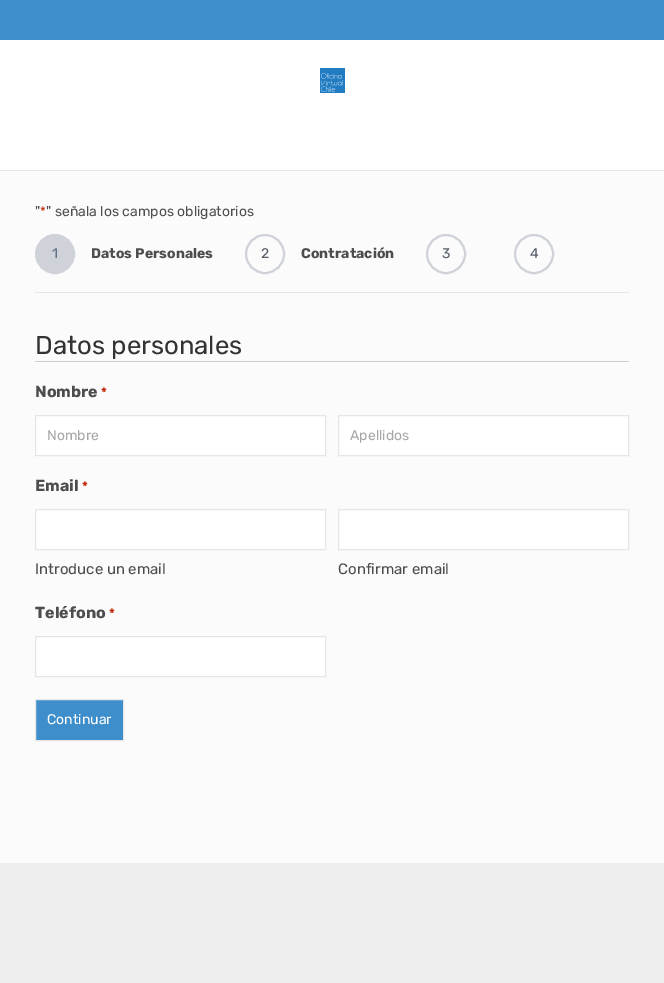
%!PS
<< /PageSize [664 983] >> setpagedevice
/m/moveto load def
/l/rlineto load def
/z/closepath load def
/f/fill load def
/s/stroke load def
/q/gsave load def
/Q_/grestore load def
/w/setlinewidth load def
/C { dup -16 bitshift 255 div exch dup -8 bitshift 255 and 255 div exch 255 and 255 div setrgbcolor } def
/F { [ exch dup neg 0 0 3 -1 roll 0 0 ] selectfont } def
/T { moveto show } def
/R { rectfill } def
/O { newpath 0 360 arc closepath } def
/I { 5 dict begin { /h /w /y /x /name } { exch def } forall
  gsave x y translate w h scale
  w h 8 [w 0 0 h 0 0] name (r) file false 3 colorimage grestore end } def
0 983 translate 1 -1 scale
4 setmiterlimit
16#EEEEEE C
0 0 664 983 R
16#FBFBFC C
0 171 664 692 R
16#3E8ECC C
0 0 664 40 R
16#FFFFFF C
0 40 664 130 R
(1.rgb) 320 68 25 25 I
16#E7E7E8 C
0 170 664 1 R
/Rubik-Regular 14 F
16#4D4D4D C
(") 35 216 T
/Rubik-Regular 13 F
16#C02B0A C
(*) 40 216 T
/Rubik-Regular 14 F
16#4D4D4D C
(" señala los campos obligatorios) 46 216 T
16#E5E7EB C
35 292 594 1 R
16#CFD3D9 C
55 254 19 O q f Q_
2 w
s
16#607382 C
(1) 52 258 T
/Rubik-Bold 14 F
16#4D4D4D C
(Datos Personales) 91 258 T
16#CFD3D9 C
265 254 19 O s
/Rubik-Regular 14 F
16#585E6A C
(2) 261 258 T
/Rubik-Bold 14 F
16#4D4D4D C
(Contratación) 301 258 T
16#CFD3D9 C
446 254 19 O s
/Rubik-Regular 14 F
16#585E6A C
(3) 442 258 T
16#CFD3D9 C
534 254 19 O s
16#585E6A C
(4) 530 258 T
16#CCCCCC C
35 361 594 1 R
/Rubik-Regular 25.75 F
16#333333 C
(Datos personales) 35 354 T
/Rubik-Bold 16 F
16#4D4D4D C
(Nombre) 35 397 T
/Rubik-Bold 13 F
16#C02B0A C
(*) 101 397 T
16#FFFFFF C
35.5 415.5 m 290 0 l 0 40 l -290 0 l z q f Q_
16#E6E6E6 C
1 w
s
/Rubik-Regular 14 F
16#A6A6A6 C
(Nombre) 47 440 T
16#FFFFFF C
338.5 415.5 m 290 0 l 0 40 l -290 0 l z q f Q_
16#E6E6E6 C
s
16#A6A6A6 C
(Apellidos) 350 440 T
/Rubik-Bold 16 F
16#4D4D4D C
(Email) 35 491 T
/Rubik-Bold 13 F
16#C02B0A C
(*) 82 491 T
16#FFFFFF C
35.5 509.5 m 290 0 l 0 40 l -290 0 l z q f Q_
16#E6E6E6 C
s
/Rubik-Regular 15 F
16#4D4D4D C
(Introduce un email) 35 574 T
16#FFFFFF C
338.5 509.5 m 290 0 l 0 40 l -290 0 l z q f Q_
16#E6E6E6 C
s
16#4D4D4D C
(Confirmar email) 338 574 T
/Rubik-Bold 16 F
(Teléfono) 35 618 T
/Rubik-Bold 13 F
16#C02B0A C
(*) 109 618 T
16#FFFFFF C
35.5 636.5 m 290 0 l 0 40 l -290 0 l z q f Q_
16#E6E6E6 C
s
16#3E8ECC C
35.5 699.5 m 88 0 l 0 41 l -88 0 l z q f Q_
16#E6E6E6 C
s
/Rubik-Regular 14 F
16#FFFFFF C
(Continuar) 47 724 T
showpage
